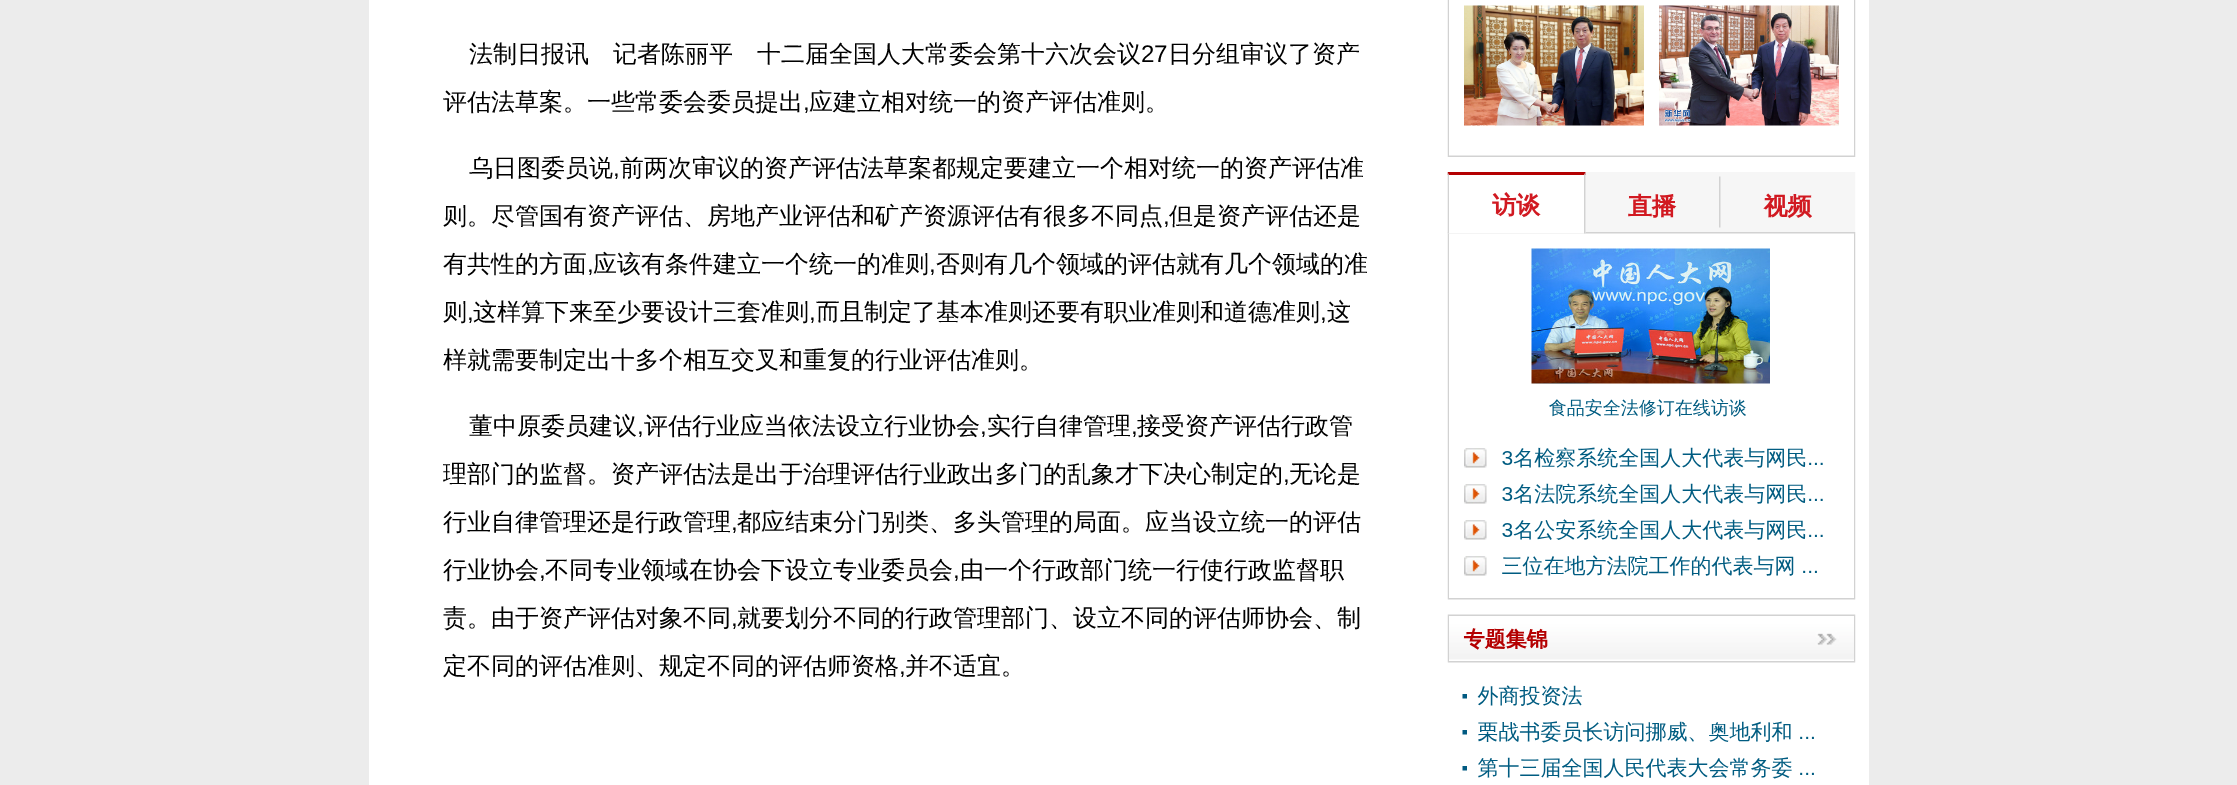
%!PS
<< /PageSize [2237 785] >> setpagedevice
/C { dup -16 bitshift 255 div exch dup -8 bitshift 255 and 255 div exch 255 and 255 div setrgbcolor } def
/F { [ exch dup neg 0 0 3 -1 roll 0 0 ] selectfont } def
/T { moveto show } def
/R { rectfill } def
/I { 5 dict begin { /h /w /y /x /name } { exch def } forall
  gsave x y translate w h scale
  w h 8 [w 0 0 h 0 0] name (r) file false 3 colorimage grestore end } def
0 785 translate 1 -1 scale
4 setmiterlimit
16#ECECEC C
0 0 2237 785 R
16#FFFFFF C
369 0 1500 785 R
/WenQuanYiZenHei-Medium 24 F
16#000000 C
(法制日报讯　记者陈丽平　十二届全国人大常委会第十六次会议) 469 62 T
/LiberationSans-Regular 24 F
(27) 1141 62 T
/WenQuanYiZenHei-Medium 24 F
(日分组审议了资产) 1168 62 T
(评估法草案。一些常委会委员提出) 443 110 T
/LiberationSans-Regular 24 F
(,) 803 110 T
/WenQuanYiZenHei-Medium 24 F
(应建立相对统一的资产评估准则。) 809 110 T
(乌日图委员说) 469 176 T
/LiberationSans-Regular 24 F
(,) 613 176 T
/WenQuanYiZenHei-Medium 24 F
(前两次审议的资产评估法草案都规定要建立一个相对统一的资产评估准) 620 176 T
(则。尽管国有资产评估、房地产业评估和矿产资源评估有很多不同点) 443 224 T
/LiberationSans-Regular 24 F
(,) 1163 224 T
/WenQuanYiZenHei-Medium 24 F
(但是资产评估还是) 1169 224 T
(有共性的方面) 443 272 T
/LiberationSans-Regular 24 F
(,) 587 272 T
/WenQuanYiZenHei-Medium 24 F
(应该有条件建立一个统一的准则) 593 272 T
/LiberationSans-Regular 24 F
(,) 929 272 T
/WenQuanYiZenHei-Medium 24 F
(否则有几个领域的评估就有几个领域的准) 936 272 T
(则) 443 320 T
/LiberationSans-Regular 24 F
(,) 467 320 T
/WenQuanYiZenHei-Medium 24 F
(这样算下来至少要设计三套准则) 473 320 T
/LiberationSans-Regular 24 F
(,) 809 320 T
/WenQuanYiZenHei-Medium 24 F
(而且制定了基本准则还要有职业准则和道德准则) 816 320 T
/LiberationSans-Regular 24 F
(,) 1320 320 T
/WenQuanYiZenHei-Medium 24 F
(这) 1327 320 T
(样就需要制定出十多个相互交叉和重复的行业评估准则。) 443 368 T
(董中原委员建议) 469 434 T
/LiberationSans-Regular 24 F
(,) 637 434 T
/WenQuanYiZenHei-Medium 24 F
(评估行业应当依法设立行业协会) 644 434 T
/LiberationSans-Regular 24 F
(,) 980 434 T
/WenQuanYiZenHei-Medium 24 F
(实行自律管理) 987 434 T
/LiberationSans-Regular 24 F
(,) 1131 434 T
/WenQuanYiZenHei-Medium 24 F
(接受资产评估行政管) 1137 434 T
(理部门的监督。资产评估法是出于治理评估行业政出多门的乱象才下决心制定的) 443 482 T
/LiberationSans-Regular 24 F
(,) 1283 482 T
/WenQuanYiZenHei-Medium 24 F
(无论是) 1289 482 T
(行业自律管理还是行政管理) 443 530 T
/LiberationSans-Regular 24 F
(,) 731 530 T
/WenQuanYiZenHei-Medium 24 F
(都应结束分门别类、多头管理的局面。应当设立统一的评估) 737 530 T
(行业协会) 443 578 T
/LiberationSans-Regular 24 F
(,) 539 578 T
/WenQuanYiZenHei-Medium 24 F
(不同专业领域在协会下设立专业委员会) 545 578 T
/LiberationSans-Regular 24 F
(,) 953 578 T
/WenQuanYiZenHei-Medium 24 F
(由一个行政部门统一行使行政监督职) 960 578 T
(责。由于资产评估对象不同) 443 626 T
/LiberationSans-Regular 24 F
(,) 731 626 T
/WenQuanYiZenHei-Medium 24 F
(就要划分不同的行政管理部门、设立不同的评估师协会、制) 737 626 T
(定不同的评估准则、规定不同的评估师资格) 443 674 T
/LiberationSans-Regular 24 F
(,) 899 674 T
/WenQuanYiZenHei-Medium 24 F
(并不适宜。) 905 674 T
(1.rgb) 1447 0 409 779 I
showpage
